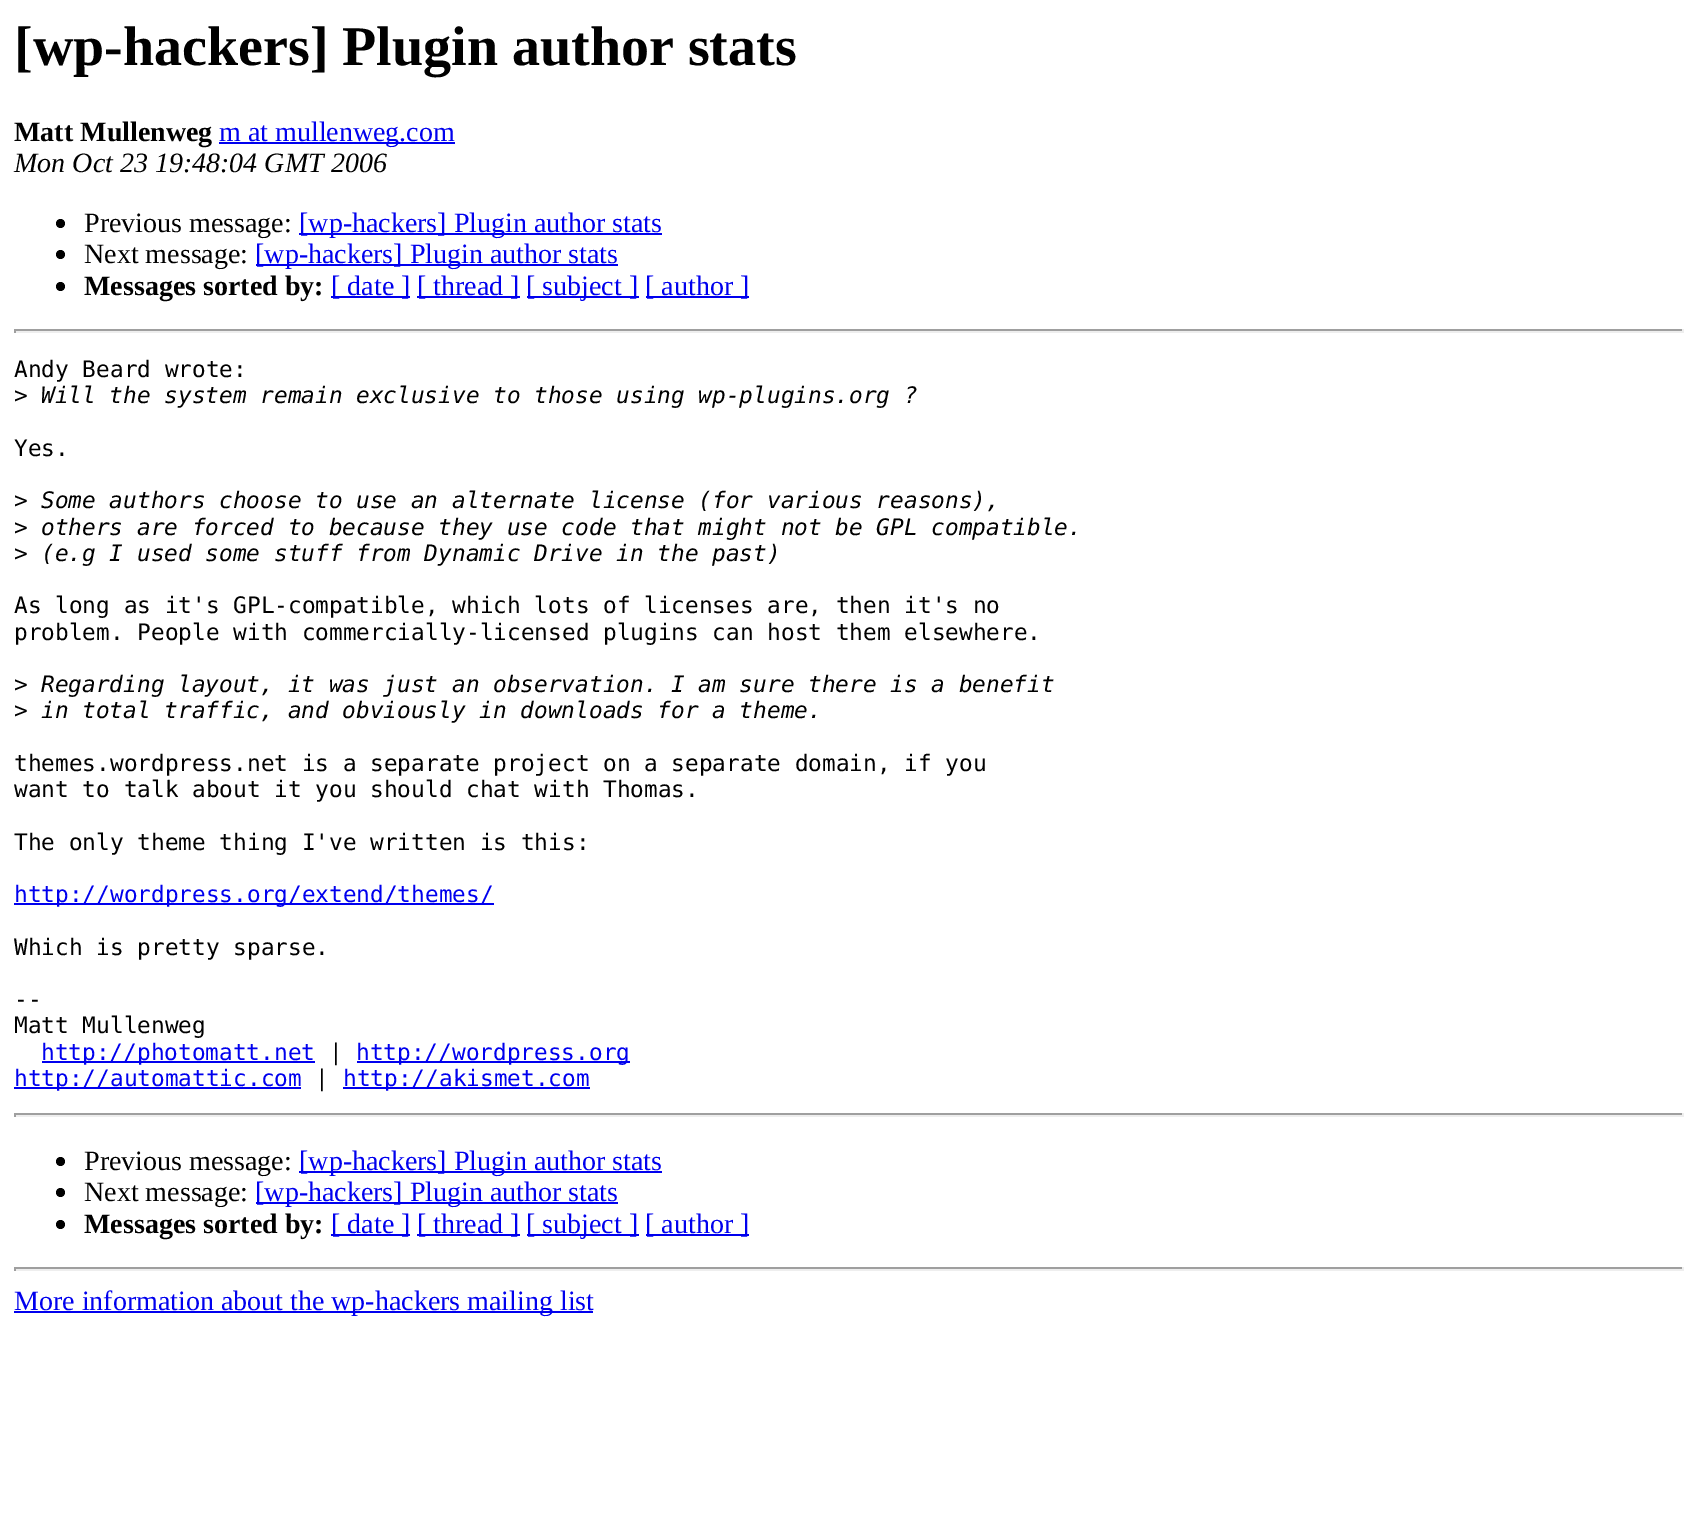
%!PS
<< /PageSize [1696 1517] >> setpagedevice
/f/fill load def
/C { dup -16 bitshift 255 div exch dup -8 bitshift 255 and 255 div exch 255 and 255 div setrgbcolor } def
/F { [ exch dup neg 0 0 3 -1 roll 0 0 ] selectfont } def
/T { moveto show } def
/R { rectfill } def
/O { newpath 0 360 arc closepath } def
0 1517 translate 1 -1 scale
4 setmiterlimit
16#FFFFFF C
0 0 1696 1517 R
/LiberationSerif-Bold 56 F
16#000000 C
([wp-hackers] Plugin author stats) 14 65 T
/LiberationSerif-Bold 28 F
(Matt Mullenweg) 14 141 T
16#0000EE C
219 142 236 2 R
/LiberationSerif-Regular 28 F
(m at mullenweg.com) 219 141 T
/LiberationSerif-Italic 28 F
16#000000 C
(Mon Oct 23 19:48:04 GMT 2006) 14 172 T
60.5 223.5 4.5 O f
/LiberationSerif-Regular 28 F
(Previous message:) 84 232 T
16#0000EE C
299 233 363 2 R
([wp-hackers] Plugin author stats) 299 232 T
16#000000 C
60.5 254.5 4.5 O f
(Next message:) 84 263 T
16#0000EE C
256 264 362 2 R
([wp-hackers] Plugin author stats) 255 263 T
16#000000 C
60.5 286.5 4.5 O f
/LiberationSerif-Bold 28 F
(Messages sorted by:) 84 295 T
16#0000EE C
331 296 79 2 R
/LiberationSerif-Regular 28 F
([ date ]) 331 295 T
417 296 103 2 R
([ thread ]) 417 295 T
527 296 112 2 R
([ subject ]) 526 295 T
646 296 103 2 R
([ author ]) 645 295 T
16#9F9F9F C
14 329 1670 2 R
16#EEEEEE C
1682 329 2 4 R
14 331 1670 2 R
16#9F9F9F C
14 329 2 4 R
/DejaVuSansMono-Regular 22.75 F
16#000000 C
(Andy Beard wrote:) 14 377 T
(>) 14 403 T
/DejaVuSansMono-Italic 22.75 F
(Will the system remain exclusive to those using wp-plugins.org ?) 41 403 T
/DejaVuSansMono-Regular 22.75 F
(Yes.) 14 456 T
(>) 14 508 T
/DejaVuSansMono-Italic 22.75 F
(Some authors choose to use an alternate license \(for various reasons\),) 41 508 T
/DejaVuSansMono-Regular 22.75 F
(>) 14 535 T
/DejaVuSansMono-Italic 22.75 F
(others are forced to because they use code that might not be GPL compatible.) 41 535 T
/DejaVuSansMono-Regular 22.75 F
(>) 14 561 T
/DejaVuSansMono-Italic 22.75 F
(\(e.g I used some stuff from Dynamic Drive in the past\)) 41 561 T
/DejaVuSansMono-Regular 22.75 F
(As long as it's GPL-compatible, which lots of licenses are, then it's no) 14 613 T
(problem. People with commercially-licensed plugins can host them elsewhere.) 14 640 T
(>) 14 692 T
/DejaVuSansMono-Italic 22.75 F
(Regarding layout, it was just an observation. I am sure there is a benefit) 41 692 T
/DejaVuSansMono-Regular 22.75 F
(>) 14 718 T
/DejaVuSansMono-Italic 22.75 F
(in total traffic, and obviously in downloads for a theme.) 41 718 T
/DejaVuSansMono-Regular 22.75 F
(themes.wordpress.net is a separate project on a separate domain, if you) 14 771 T
(want to talk about it you should chat with Thomas.) 14 797 T
(The only theme thing I've written is this:) 14 850 T
16#0000EE C
14 903 480 2 R
(http://wordpress.org/extend/themes/) 14 902 T
16#000000 C
(Which is pretty sparse.) 14 955 T
(--) 14 1007 T
(Matt Mullenweg) 14 1033 T
16#0000EE C
42 1061 273 2 R
(http://photomatt.net) 41 1060 T
16#000000 C
(|) 329 1060 T
16#0000EE C
357 1061 273 2 R
(http://wordpress.org) 356 1060 T
14 1087 287 2 R
(http://automattic.com) 14 1086 T
16#000000 C
(|) 315 1086 T
16#0000EE C
343 1087 247 2 R
(http://akismet.com) 343 1086 T
16#9F9F9F C
14 1113 1670 2 R
16#EEEEEE C
1682 1113 2 4 R
14 1115 1670 2 R
16#9F9F9F C
14 1113 2 4 R
16#000000 C
60.5 1161.5 4.5 O f
/LiberationSerif-Regular 28 F
(Previous message:) 84 1170 T
16#0000EE C
299 1171 363 2 R
([wp-hackers] Plugin author stats) 299 1170 T
16#000000 C
60.5 1192.5 4.5 O f
(Next message:) 84 1201 T
16#0000EE C
256 1202 362 2 R
([wp-hackers] Plugin author stats) 255 1201 T
16#000000 C
60.5 1224.5 4.5 O f
/LiberationSerif-Bold 28 F
(Messages sorted by:) 84 1233 T
16#0000EE C
331 1234 79 2 R
/LiberationSerif-Regular 28 F
([ date ]) 331 1233 T
417 1234 103 2 R
([ thread ]) 417 1233 T
527 1234 112 2 R
([ subject ]) 526 1233 T
646 1234 103 2 R
([ author ]) 645 1233 T
16#9F9F9F C
14 1267 1670 2 R
16#EEEEEE C
1682 1267 2 4 R
14 1269 1670 2 R
16#9F9F9F C
14 1267 2 4 R
16#0000EE C
14 1311 579 2 R
(More information about the wp-hackers mailing list) 14 1310 T
showpage
